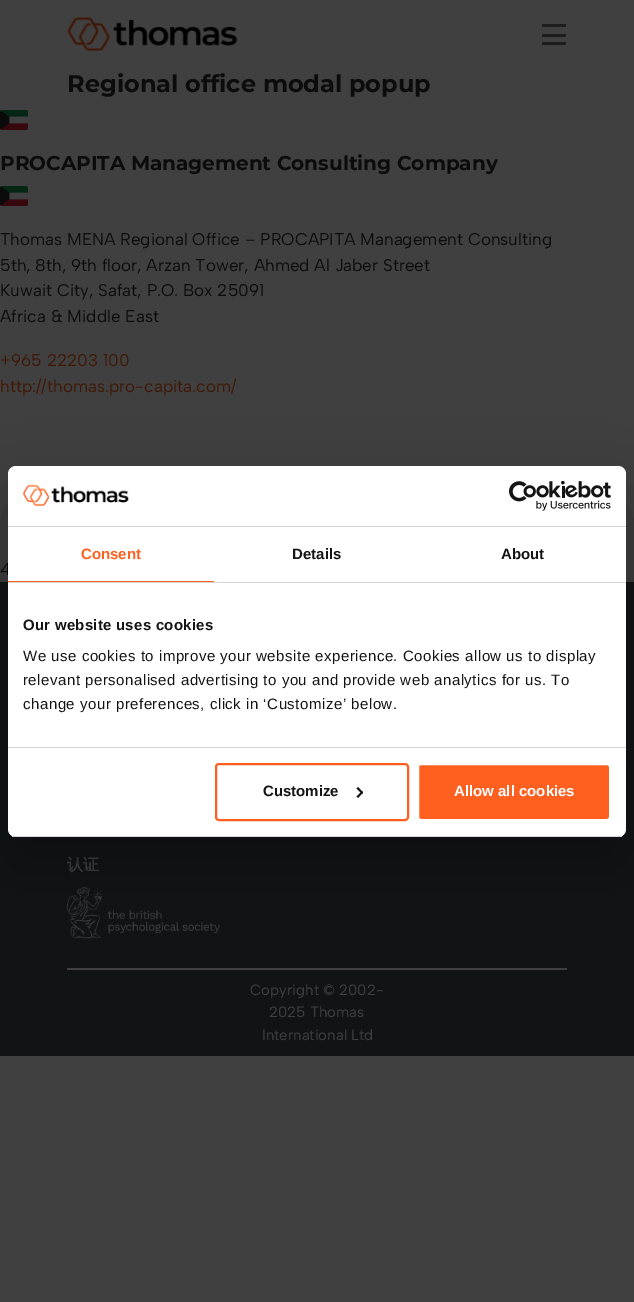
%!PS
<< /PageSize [634 1302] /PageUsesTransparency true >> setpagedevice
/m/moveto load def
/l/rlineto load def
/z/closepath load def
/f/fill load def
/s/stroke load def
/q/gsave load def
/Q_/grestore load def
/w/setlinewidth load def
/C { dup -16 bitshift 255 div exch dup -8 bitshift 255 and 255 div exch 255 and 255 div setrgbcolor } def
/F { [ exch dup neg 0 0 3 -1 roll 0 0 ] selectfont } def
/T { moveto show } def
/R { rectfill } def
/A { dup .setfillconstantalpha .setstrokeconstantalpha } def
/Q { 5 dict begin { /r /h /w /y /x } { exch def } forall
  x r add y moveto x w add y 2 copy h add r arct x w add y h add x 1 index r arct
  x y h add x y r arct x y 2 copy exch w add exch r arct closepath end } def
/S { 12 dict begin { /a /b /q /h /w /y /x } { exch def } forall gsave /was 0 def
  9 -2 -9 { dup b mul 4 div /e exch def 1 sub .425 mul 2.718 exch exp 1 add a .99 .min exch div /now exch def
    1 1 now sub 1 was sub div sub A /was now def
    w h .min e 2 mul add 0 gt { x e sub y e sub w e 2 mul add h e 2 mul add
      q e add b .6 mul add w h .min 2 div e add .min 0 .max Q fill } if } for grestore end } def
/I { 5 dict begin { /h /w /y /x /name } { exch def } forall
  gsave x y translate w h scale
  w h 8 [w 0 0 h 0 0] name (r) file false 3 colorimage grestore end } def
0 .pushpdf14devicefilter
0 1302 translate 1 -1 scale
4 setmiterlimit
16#404040 C
0 0 634 1302 R
(1.rgb) 67 17 171 35 I
16#1D1D1E C
542 24 24 3 R
542 42 24 3 R
542 34 24 3 R
/Montserrat-Bold 24 F
16#0C0C0C C
(Regional office modal popup) 67 92 T
(2.rgb) 0 110 28 20 I
/Montserrat-Bold 20 F
(PROCAPITA Management Consulting Company) 0 170 T
(2.rgb) 0 186 28 20 I
/AlbertSans-Regular 17 F
(Thomas MENA Regional Office – PROCAPITA Management Consulting) 0 245 T
(5th, 8th, 9th floor, Arzan Tower, Ahmed Al Jaber Street) 0 271 T
(Kuwait City, Safat, P.O. Box 25091) 0 296 T
(Africa & Middle East) 0 322 T
16#401808 C
(+965 22203 100) 0 366 T
(http://thomas.pro-capita.com/) 0 392 T
16#0C0C0C C
(4) 0 575 T
16#111415 C
0 582 634 474 R
/WenQuanYiZenHei-Bold 16 F
16#404040 C
(认证) 67 870 T
(3.rgb) 67 887 153 52 I
67 968 500 2 R
/AlbertSans-Regular 14.9 F
(Copyright © 2002-) 250 995 T
(2025 Thomas) 269 1017 T
(International Ltd) 262 1040 T
16#000000 C
8 498 618 371 8 34 .3 S
16#FFFFFF C
8 466 618 371 8 Q f
16#D6D6D6 C
8 526 618 1 R
(4.rgb) 23 484 106 22 I
(5.rgb) 509 481 102 30 I
8 582 618 1 R
16#FF5F1F C
8 581 206 1 R
/LiberationSans-Bold 15 F
(Consent) 81 559 T
16#141414 C
(Details) 292 559 T
(About) 501 559 T
16#D6D6D6 C
8 747 618 1 R
16#141414 C
23 630 m .25 0 (Our website uses cookies) ashow
/LiberationSans-Regular 15 F
23 661 m .5 0 (We use cookies to improve your website experience. Cookies allow us to display) ashow
23 685 m .5 0 (relevant personalised advertising to you and provide web analytics for us. To) ashow
23 709 m .5 0 (change your preferences, click in ‘Customize’ below.) ashow
q
8 466 618 371 8 Q clip newpath
16#D6D6D6 C
8 836 618 1 R
Q_
16#FF5F1F C
2 w
216 764 192 56 3 Q s
/LiberationSans-Bold 15 F
16#141414 C
(Customize) 263 796 T
358 787 m 5 5.5 l -1 1.5 l -5.5 -5.5 l z f
362 791 m 1 1.5 l -5 5.5 l -1.5 -1.5 l z f
16#FF5F1F C
418 764 192 56 3 Q q f Q_
16#FFFFFF C
s
(Allow all cookies) 454 796 T
.poppdf14devicefilter showpage
